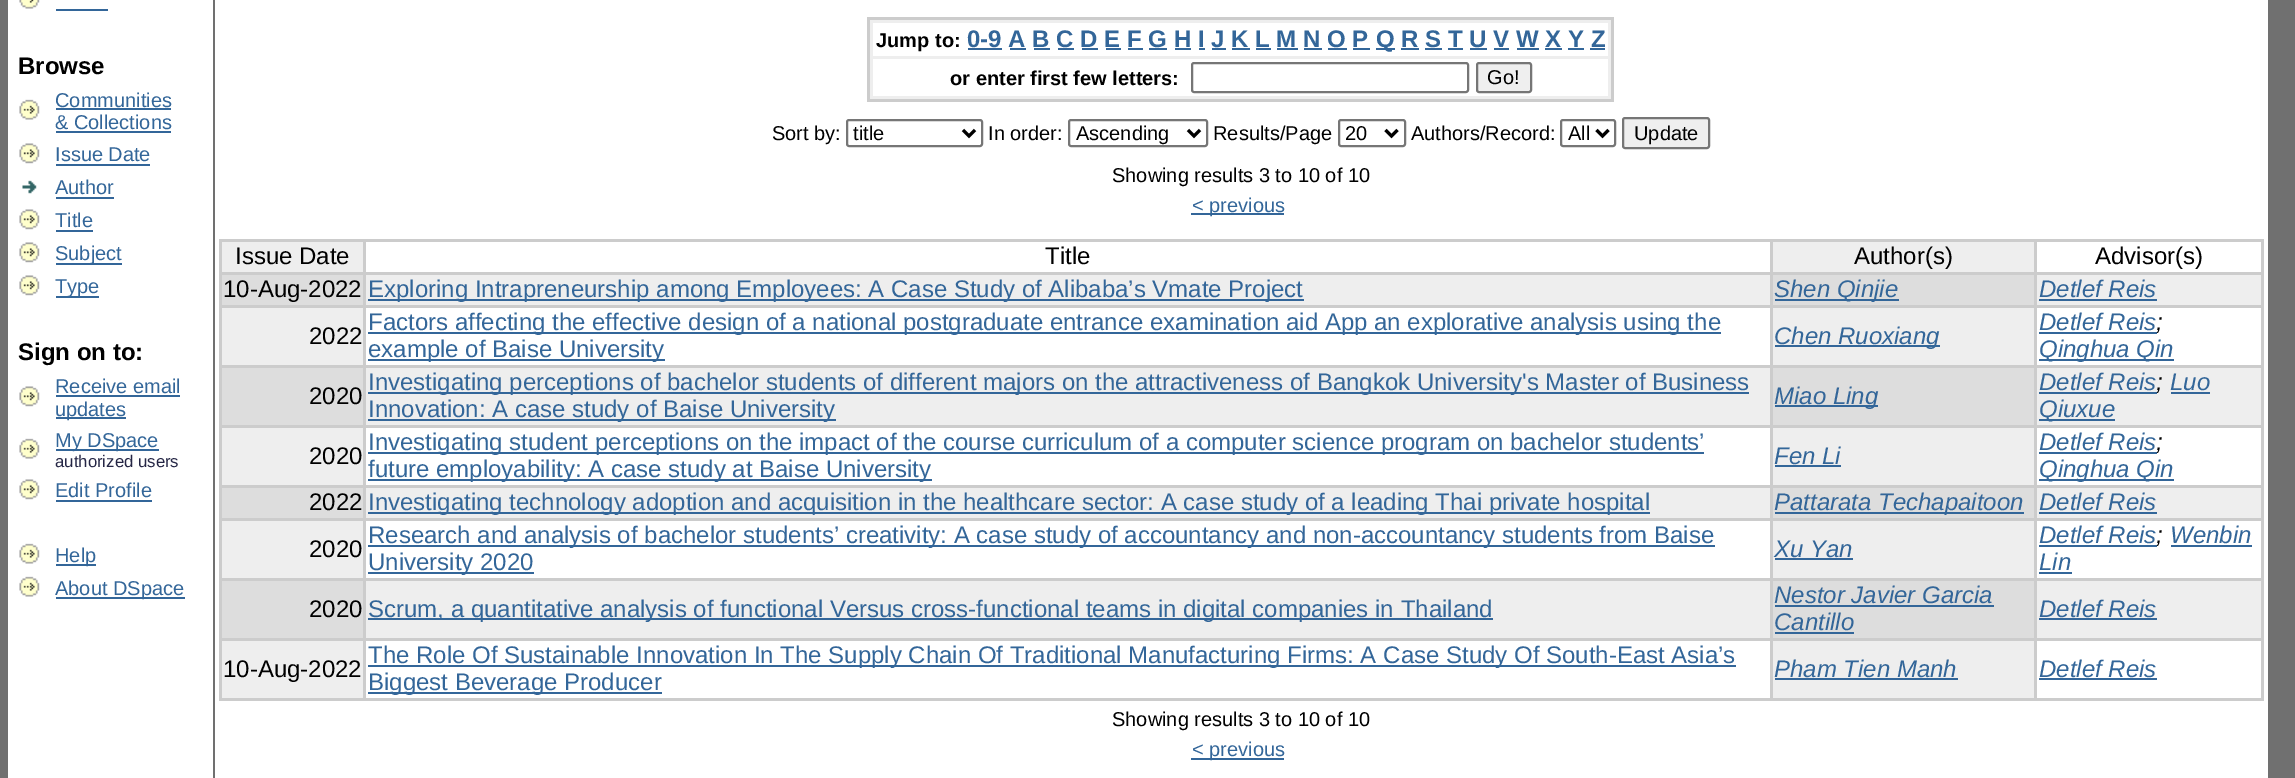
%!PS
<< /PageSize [2295 778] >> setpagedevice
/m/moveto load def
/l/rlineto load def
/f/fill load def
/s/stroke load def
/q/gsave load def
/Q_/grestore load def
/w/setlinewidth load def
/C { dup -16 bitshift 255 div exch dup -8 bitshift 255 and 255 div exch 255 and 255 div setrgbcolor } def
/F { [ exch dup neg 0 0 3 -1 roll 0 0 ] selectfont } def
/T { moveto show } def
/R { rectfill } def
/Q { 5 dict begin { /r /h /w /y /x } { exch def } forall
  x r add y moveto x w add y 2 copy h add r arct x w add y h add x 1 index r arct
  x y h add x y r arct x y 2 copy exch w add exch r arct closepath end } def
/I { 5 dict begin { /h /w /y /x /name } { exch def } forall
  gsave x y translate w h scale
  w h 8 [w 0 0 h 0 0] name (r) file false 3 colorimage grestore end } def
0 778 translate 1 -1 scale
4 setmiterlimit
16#707070 C
0 0 2295 778 R
16#FFFFFF C
8 0 205 778 R
(1.rgb) 19 0 21 9 I
16#336699 C
56 9 52 2 R
/LiberationSans-Bold 24 F
16#000000 C
(Browse) 18 74 T
(2.rgb) 19 99 21 21 I
/LiberationSans-Regular 20 F
16#336699 C
(Communities) 55 107 T
56 108 115 2 R
(& Collections) 55 129 T
56 131 115 2 R
(3.rgb) 19 143 21 21 I
(Issue Date) 55 161 T
56 164 94 2 R
(4.rgb) 22 180 15 14 I
(Author) 55 194 T
56 197 58 2 R
(3.rgb) 19 209 21 21 I
(Title) 55 227 T
56 230 37 2 R
(3.rgb) 19 242 21 21 I
56 263 66 2 R
(Subject) 55 260 T
(3.rgb) 19 275 21 21 I
56 296 43 2 R
(Type) 55 293 T
/LiberationSans-Bold 24 F
16#000000 C
(Sign on to:) 18 360 T
(3.rgb) 19 386 21 21 I
/LiberationSans-Regular 20 F
16#336699 C
(Receive email) 55 393 T
56 395 124 2 R
56 417 70 2 R
(updates) 55 416 T
(2.rgb) 19 438 21 21 I
56 449 103 2 R
(My DSpace) 55 447 T
/LiberationSans-Regular 16.75 F
16#252645 C
(authorized users) 55 467 T
(3.rgb) 19 479 21 21 I
/LiberationSans-Regular 20 F
16#336699 C
(Edit Profile) 55 497 T
56 500 96 2 R
(2.rgb) 19 543 21 21 I
56 564 40 2 R
(Help) 55 562 T
(2.rgb) 19 576 21 21 I
56 597 129 2 R
(About DSpace) 55 595 T
16#FFFFFF C
215 0 2053 778 R
16#CCCCCC C
867 17 747 85 R
16#EEEEEE C
870 20 741 79 R
16#FFFFFF C
873 23 735 33 R
/LiberationSans-Bold 20 F
16#000000 C
(Jump to:) 876 47 T
/LiberationSans-Bold 24 F
16#336699 C
(0-9 A B C D E F G H I J K L M N O P) 967 47 T
968 48 34 2 R
1376 48 19 2 R
(Q R S T U V W X Y Z) 1376 47 T
1010 48 16 2 R
1034 48 16 2 R
1058 48 16 2 R
1082 48 16 2 R
1106 48 15 2 R
1128 48 15 2 R
1149 48 18 2 R
1175 48 16 2 R
1199 48 6 2 R
1212 48 14 2 R
1232 48 18 2 R
1256 48 15 2 R
1277 48 21 2 R
1304 48 18 2 R
1328 48 19 2 R
1353 48 17 2 R
1401 48 18 2 R
1425 48 17 2 R
1448 48 15 2 R
1470 48 17 2 R
1494 48 15 2 R
1517 48 22 2 R
1545 48 17 2 R
1568 48 16 2 R
1590 48 15 2 R
16#FFFFFF C
873 59 735 37 R
/LiberationSans-Bold 20 F
16#000000 C
(or enter first few letters:) 950 85 T
16#767676 C
2 w
1192 63 276 29 2 Q s
16#EFEFEF C
1477 63 54 29 2 Q q f Q_
16#767676 C
s
/LiberationSans-Regular 20 F
16#000000 C
(Go!) 1487 84 T
(Sort by:) 772 140 T
16#767676 C
847 120 135 26 2 Q s
16#000000 C
3 w
963 130 m 6 6 l 6 -6 l s
(title) 853 140 T
(In order:) 988 140 T
16#767676 C
2 w
1069 120 138 26 2 Q s
16#000000 C
3 w
1188 130 m 6 6 l 6 -6 l s
(Ascending) 1076 140 T
(Results/Page) 1213 140 T
16#767676 C
2 w
1339 120 66 26 2 Q s
16#000000 C
3 w
1385.5 130 m 6 6 l 6 -6 l s
(20) 1345 140 T
(Authors/Record:) 1411 140 T
16#767676 C
2 w
1561 120 54 26 2 Q s
16#000000 C
3 w
1596.5 130 m 6 6 l 6 -6 l s
(All) 1568 140 T
16#EFEFEF C
1623 118 86 30 2 Q q f Q_
16#767676 C
2 w
s
16#000000 C
(Update) 1634 140 T
(Showing results 3 to 10 of 10) 1112 182 T
16#336699 C
1191 213 93 2 R
(< previous) 1192 212 T
16#CCCCCC C
219 239 2045 462 R
16#EEEEEE C
222 242 141 30 R
/LiberationSans-Regular 24 F
16#000000 C
(Issue Date) 235 264 T
16#FFFFFF C
366 242 1404 30 R
16#000000 C
(Title) 1045 264 T
16#EEEEEE C
1773 242 261 30 R
16#000000 C
(Author\(s\)) 1854 264 T
16#FFFFFF C
2037 242 224 30 R
16#000000 C
(Advisor\(s\)) 2095 264 T
16#DDDDDD C
222 275 141 30 R
16#000000 C
(10-Aug-2022) 223 297 T
16#EEEEEE C
366 275 1404 30 R
16#336699 C
368 299 936 2 R
(Exploring Intrapreneurship among Employees: A Case Study of Alibaba’s Vmate Project) 368 297 T
16#DDDDDD C
1773 275 261 30 R
16#336699 C
1775 299 124 2 R
/LiberationSans-Italic 24 F
(Shen Qinjie) 1774 297 T
16#EEEEEE C
2037 275 224 30 R
16#336699 C
(Detlef Reis) 2039 297 T
2039 299 118 2 R
16#EEEEEE C
222 308 141 57 R
/LiberationSans-Regular 24 F
16#000000 C
(2022) 309 344 T
16#FFFFFF C
366 308 1404 57 R
16#336699 C
368 332 1353 2 R
(Factors affecting the effective design of a national postgraduate entrance examination aid App an explorative analysis using the) 368 330 T
368 359 297 2 R
(example of Baise University) 368 357 T
16#EEEEEE C
1773 308 261 57 R
16#336699 C
1775 345 165 2 R
/LiberationSans-Italic 24 F
(Chen Ruoxiang) 1774 344 T
16#FFFFFF C
2037 308 224 57 R
16#336699 C
(Detlef Reis) 2039 330 T
2039 332 118 2 R
16#000000 C
(;) 2156 330 T
16#336699 C
2039 359 135 2 R
(Qinghua Qin) 2039 357 T
16#DDDDDD C
222 368 141 57 R
/LiberationSans-Regular 24 F
16#000000 C
(2020) 309 404 T
16#EEEEEE C
366 368 1404 57 R
16#336699 C
368 392 1381 2 R
(Investigating perceptions of bachelor students of different majors on the attractiveness of Bangkok University's Master of Business) 368 390 T
368 419 468 2 R
(Innovation: A case study of Baise University) 368 417 T
16#DDDDDD C
1773 368 261 57 R
16#336699 C
1775 405 103 2 R
/LiberationSans-Italic 24 F
(Miao Ling) 1774 404 T
16#EEEEEE C
2037 368 224 57 R
16#336699 C
(Detlef Reis) 2039 390 T
2039 392 118 2 R
16#000000 C
(;) 2156 390 T
16#336699 C
(Luo) 2170 390 T
2171 392 39 2 R
2039 419 76 2 R
(Qiuxue) 2039 417 T
16#EEEEEE C
222 428 141 57 R
/LiberationSans-Regular 24 F
16#000000 C
(2020) 309 464 T
16#FFFFFF C
366 428 1404 57 R
16#336699 C
368 452 1336 2 R
(Investigating student perceptions on the impact of the course curriculum of a computer science program on bachelor students’) 368 450 T
368 479 564 2 R
(future employability: A case study at Baise University) 368 477 T
16#EEEEEE C
1773 428 261 57 R
/LiberationSans-Italic 24 F
16#336699 C
(Fen Li) 1774 464 T
1775 465 66 2 R
16#FFFFFF C
2037 428 224 57 R
16#336699 C
(Detlef Reis) 2039 450 T
2039 452 118 2 R
16#000000 C
(;) 2156 450 T
16#336699 C
2039 479 135 2 R
(Qinghua Qin) 2039 477 T
16#DDDDDD C
222 488 141 30 R
/LiberationSans-Regular 24 F
16#000000 C
(2022) 309 510 T
16#EEEEEE C
366 488 1404 30 R
16#336699 C
368 512 1282 2 R
(Investigating technology adoption and acquisition in the healthcare sector: A case study of a leading Thai private hospital) 368 510 T
16#DDDDDD C
1773 488 261 30 R
16#336699 C
1775 512 249 2 R
/LiberationSans-Italic 24 F
(Pattarata Techapaitoon) 1774 510 T
16#EEEEEE C
2037 488 224 30 R
16#336699 C
(Detlef Reis) 2039 510 T
2039 512 118 2 R
16#EEEEEE C
222 521 141 57 R
/LiberationSans-Regular 24 F
16#000000 C
(2020) 309 557 T
16#FFFFFF C
366 521 1404 57 R
16#336699 C
368 545 1347 2 R
(Research and analysis of bachelor students’ creativity: A case study of accountancy and non-accountancy students from Baise) 368 543 T
368 572 166 2 R
(University 2020) 368 570 T
16#EEEEEE C
1773 521 261 57 R
/LiberationSans-Italic 24 F
16#336699 C
(Xu Yan) 1774 557 T
1775 558 78 2 R
16#FFFFFF C
2037 521 224 57 R
16#336699 C
(Detlef Reis) 2039 543 T
2039 545 118 2 R
16#000000 C
(;) 2156 543 T
16#336699 C
2171 545 81 2 R
(Wenbin) 2170 543 T
(Lin) 2039 570 T
2039 572 33 2 R
16#DDDDDD C
222 581 141 57 R
/LiberationSans-Regular 24 F
16#000000 C
(2020) 309 617 T
16#EEEEEE C
366 581 1404 57 R
16#336699 C
368 618 1125 2 R
(Scrum, a quantitative analysis of functional Versus cross-functional teams in digital companies in Thailand) 368 617 T
16#DDDDDD C
1773 581 261 57 R
/LiberationSans-Italic 24 F
16#336699 C
(Nestor Javier Garcia) 1774 603 T
1775 605 219 2 R
(Cantillo) 1774 630 T
1775 632 79 2 R
16#EEEEEE C
2037 581 224 57 R
16#336699 C
(Detlef Reis) 2039 617 T
2039 618 118 2 R
16#EEEEEE C
222 641 141 57 R
/LiberationSans-Regular 24 F
16#000000 C
(10-Aug-2022) 223 677 T
16#FFFFFF C
366 641 1404 57 R
16#336699 C
368 665 1368 2 R
(The Role Of Sustainable Innovation In The Supply Chain Of Traditional Manufacturing Firms: A Case Study Of South-East Asia’s) 368 663 T
368 692 294 2 R
(Biggest Beverage Producer) 368 690 T
16#EEEEEE C
1773 641 261 57 R
/LiberationSans-Italic 24 F
16#336699 C
(Pham Tien Manh) 1774 677 T
1775 678 183 2 R
16#FFFFFF C
2037 641 224 57 R
16#336699 C
(Detlef Reis) 2039 677 T
2039 678 118 2 R
/LiberationSans-Regular 20 F
16#000000 C
(Showing results 3 to 10 of 10) 1112 726 T
16#336699 C
1191 758 93 2 R
(< previous) 1192 756 T
showpage
